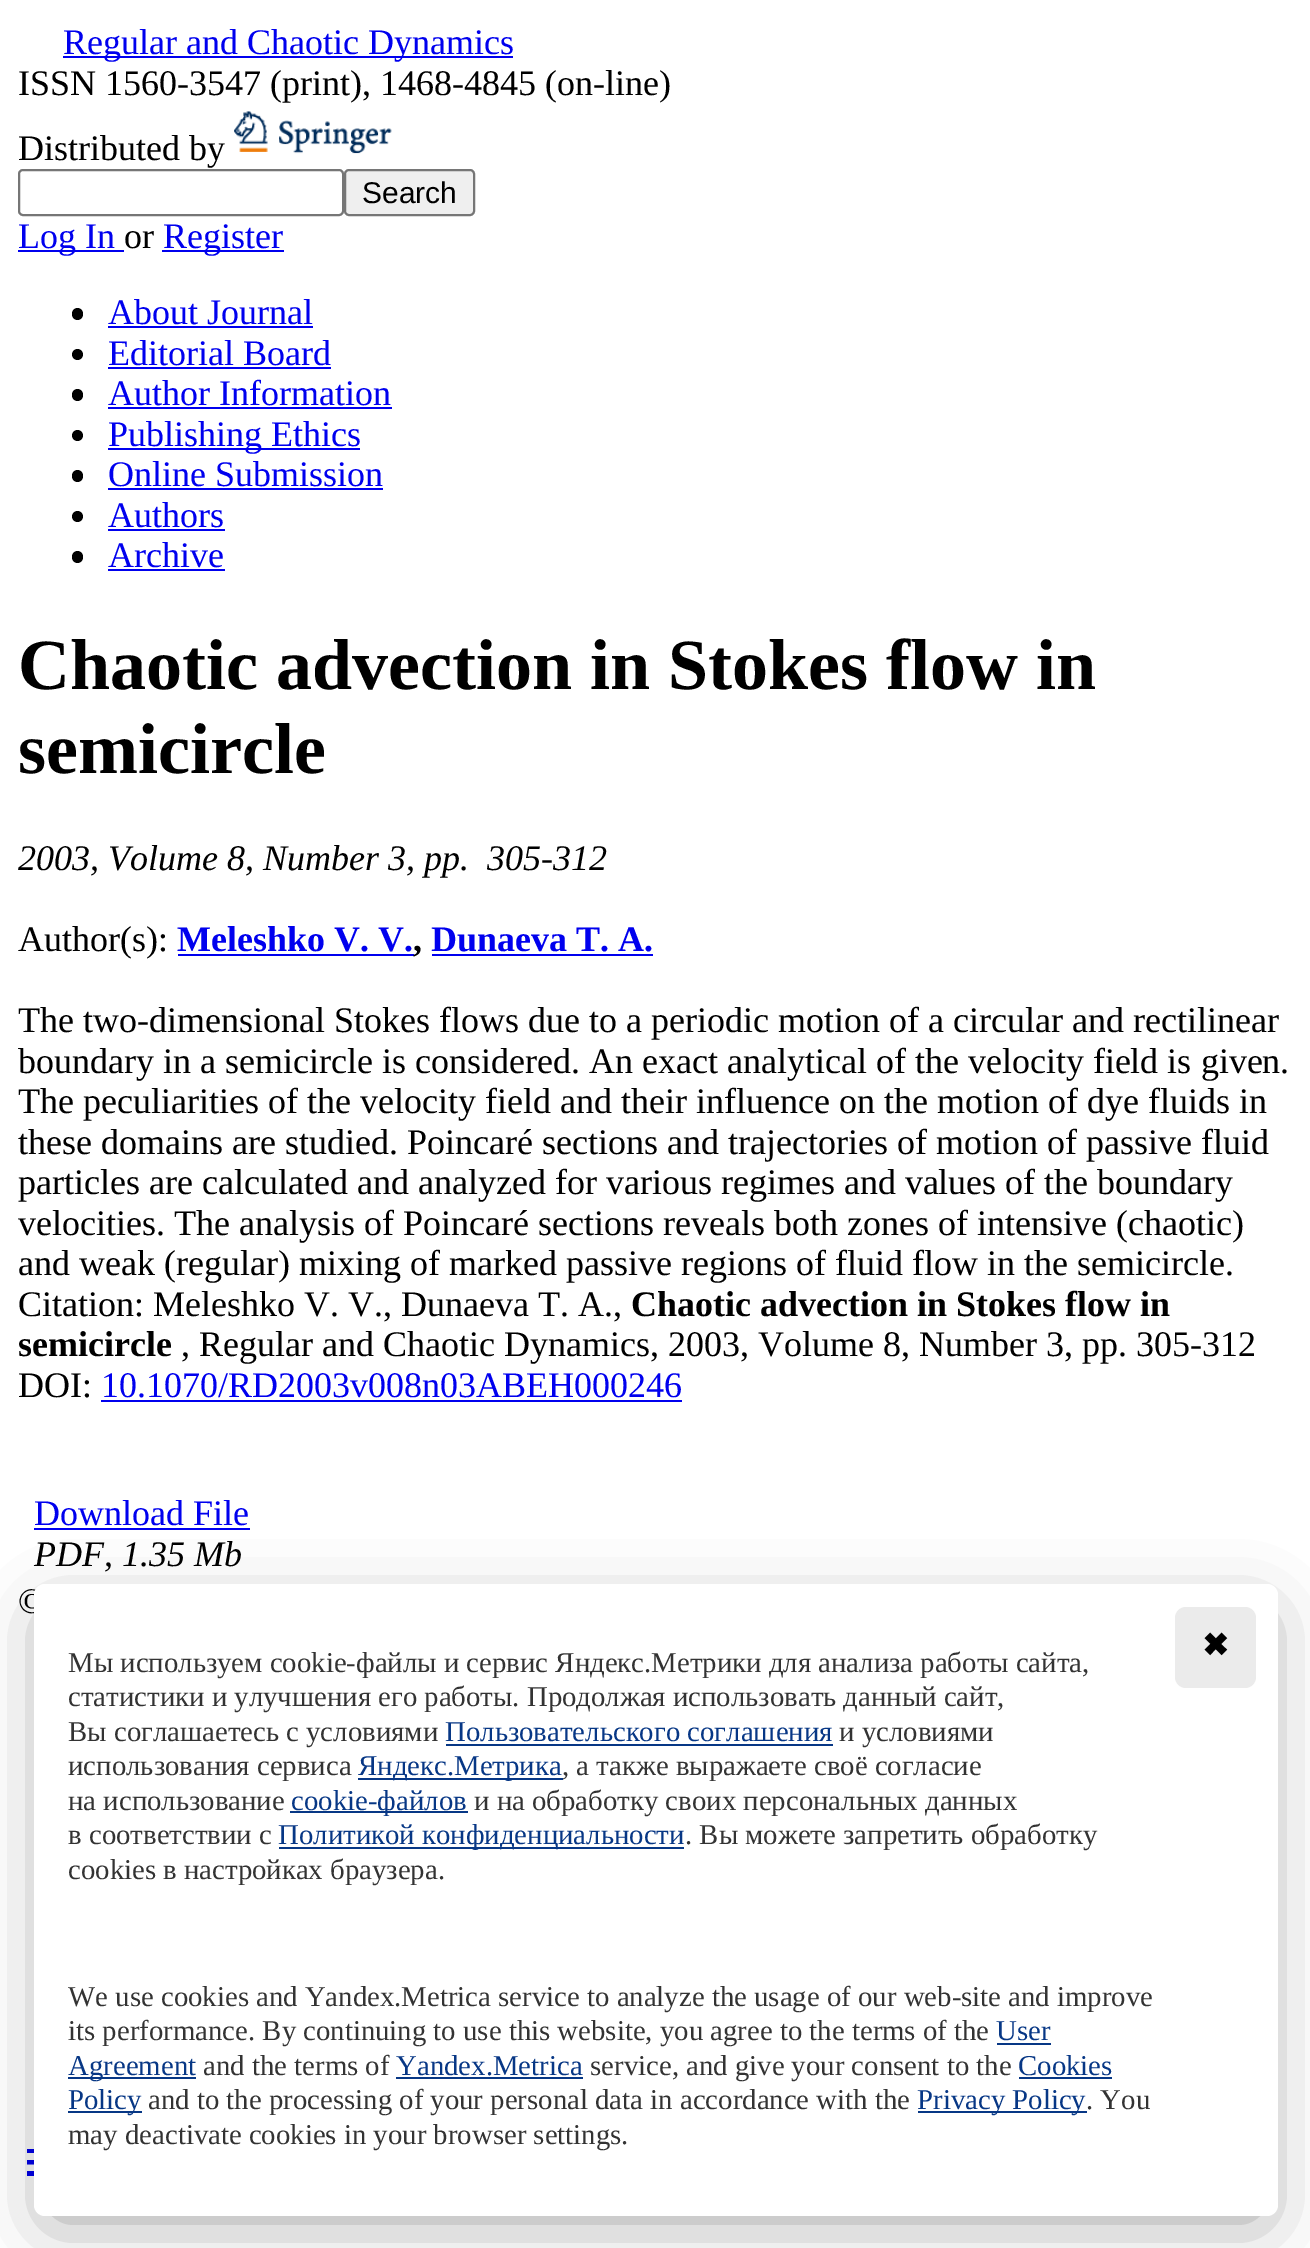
%!PS
<< /PageSize [1310 2248] /PageUsesTransparency true >> setpagedevice
/m/moveto load def
/l/rlineto load def
/z/closepath load def
/f/fill load def
/s/stroke load def
/q/gsave load def
/Q_/grestore load def
/w/setlinewidth load def
/C { dup -16 bitshift 255 div exch dup -8 bitshift 255 and 255 div exch 255 and 255 div setrgbcolor } def
/F { [ exch dup neg 0 0 3 -1 roll 0 0 ] selectfont } def
/T { moveto show } def
/R { rectfill } def
/A { dup .setfillconstantalpha .setstrokeconstantalpha } def
/O { newpath 0 360 arc closepath } def
/Q { 5 dict begin { /r /h /w /y /x } { exch def } forall
  x r add y moveto x w add y 2 copy h add r arct x w add y h add x 1 index r arct
  x y h add x y r arct x y 2 copy exch w add exch r arct closepath end } def
/S { 12 dict begin { /a /b /q /h /w /y /x } { exch def } forall gsave /was 0 def
  9 -2 -9 { dup b mul 4 div /e exch def 1 sub .425 mul 2.718 exch exp 1 add a .99 .min exch div /now exch def
    1 1 now sub 1 was sub div sub A /was now def
    w h .min e 2 mul add 0 gt { x e sub y e sub w e 2 mul add h e 2 mul add
      q e add b .6 mul add w h .min 2 div e add .min 0 .max Q fill } if } for grestore end } def
/I { 5 dict begin { /h /w /y /x /name } { exch def } forall
  gsave x y translate w h scale
  w h 8 [w 0 0 h 0 0] name (r) file false 3 colorimage grestore end } def
0 .pushpdf14devicefilter
0 2248 translate 1 -1 scale
4 setmiterlimit
16#FFFFFF C
0 0 1310 2248 R
16#0000EE C
63 56 450 2 R
/LiberationSerif-Regular 36 F
(Regular and Chaotic Dynamics) 63 54 T
16#000000 C
(ISSN 1560-3547 \(print\), 1468-4845 \(on-line\)) 18 95 T
(Distributed by) 18 160 T
(1.rgb) 234 111 158 43 I
16#767676 C
2 w
19 170 324 45 4 Q s
16#EFEFEF C
345 170 129 45 4 Q q f Q_
16#767676 C
s
/LiberationSans-Regular 30 F
16#000000 C
(Search) 362 203 T
16#0000EE C
18 250 106 2 R
/LiberationSerif-Regular 36 F
(Log In) 18 248 T
16#000000 C
(or) 124 248 T
16#0000EE C
162 250 122 2 R
(Register) 163 248 T
16#000000 C
72 308 11 12 5.5 Q f
16#0000EE C
(About Journal) 108 324 T
108 326 205 2 R
16#000000 C
77.5 354.5 5.5 O f
16#0000EE C
(Editorial Board) 108 365 T
108 367 223 2 R
16#000000 C
72 389 11 12 5.5 Q f
16#0000EE C
(Author Information) 108 405 T
108 407 284 2 R
16#000000 C
77.5 435.5 5.5 O f
16#0000EE C
108 448 252 2 R
(Publishing Ethics) 108 446 T
16#000000 C
72 470 11 12 5.5 Q f
16#0000EE C
(Online Submission) 108 486 T
108 488 275 2 R
16#000000 C
77.5 516.5 5.5 O f
16#0000EE C
(Authors) 108 527 T
108 529 117 2 R
16#000000 C
72 551 11 12 5.5 Q f
16#0000EE C
(Archive) 108 567 T
108 569 117 2 R
/LiberationSerif-Bold 72 F
16#000000 C
(Chaotic advection in Stokes flow in) 18 689 T
(semicircle) 18 773 T
/LiberationSerif-Italic 36 F
(2003, Volume 8, Number 3, pp.  305-312) 18 870 T
/LiberationSerif-Regular 36 F
(Author\(s\):) 18 951 T
/LiberationSerif-Bold 36 F
16#0000EE C
(Meleshko V. V.) 177 951 T
178 954 236 2 R
16#000000 C
(,) 413 951 T
16#0000EE C
432 954 221 2 R
(Dunaeva T. A.) 431 951 T
/LiberationSerif-Regular 36 F
16#000000 C
(The two-dimensional Stokes flows due to a periodic motion of a circular and rectilinear) 18 1032 T
(boundary in a semicircle is considered. An exact analytical of the velocity field is given.) 18 1073 T
(The peculiarities of the velocity field and their influence on the motion of dye fluids in) 18 1113 T
(these domains are studied. Poincaré sections and trajectories of motion of passive fluid) 18 1154 T
(particles are calculated and analyzed for various regimes and values of the boundary) 18 1194 T
(velocities. The analysis of Poincaré sections reveals both zones of intensive \(chaotic\)) 18 1235 T
(and weak \(regular\) mixing of marked passive regions of fluid flow in the semicircle.) 18 1275 T
(Citation: Meleshko V. V., Dunaeva T. A.,) 18 1316 T
/LiberationSerif-Bold 36 F
(Chaotic advection in Stokes flow in) 631 1316 T
(semicircle) 18 1356 T
/LiberationSerif-Regular 36 F
(, Regular and Chaotic Dynamics, 2003, Volume 8, Number 3, pp. 305-312) 181 1356 T
(DOI:) 18 1397 T
16#0000EE C
(10.1070/RD2003v008n03ABEH000246) 101 1397 T
101 1400 581 2 R
(Download File) 34 1525 T
34 1528 216 2 R
/LiberationSerif-Italic 36 F
16#000000 C
(PDF, 1.35 Mb) 34 1566 T
/LiberationSerif-Regular 36 F
(©) 18 1613 T
16#0000EE C
27 2149 m 36 0 l 0 4 l -36 0 l z 27 2160 m 36 0 l 0 4.5 l -36 0 l z 63 2171 m -36 0 l 0 5 l 36 0 l z f
16#000000 C
52 1620 1208 596 0 36 .4 S
16#FFFFFF C
34 1584 1244 632 11 Q f
16#EBEBEB C
1175 1607 81 81 11 Q f
/DejaVuSans-Bold 32 F
16#000000 C
(✖) 1202 1656 T
/LiberationSerif-Regular 28.8 F
16#333333 C
(Мы используем cookie-файлы и сервис Яндекс.Метрики для анализа работы сайта,) 68 1672 T
(статистики и улучшения его работы. Продолжая использовать данный сайт,) 68 1706 T
(Вы соглашаетесь с условиями) 68 1741 T
16#073785 C
(Пользовательского соглашения) 445 1741 T
446 1744 387 2 R
16#333333 C
(и условиями) 839 1741 T
(использования сервиса) 68 1775 T
16#073785 C
358 1778 205 2 R
(Яндекс.Метрика) 358 1775 T
16#333333 C
(, а также выражаете своё согласие) 562 1775 T
(на использование) 68 1810 T
16#073785 C
290 1811 178 2 R
(cookie-файлов) 291 1810 T
16#333333 C
(и на обработку своих персональных данных) 474 1810 T
(в соответствии с) 68 1844 T
16#073785 C
279 1847 405 2 R
(Политикой конфиденциальности) 278 1844 T
16#333333 C
(. Вы можете запретить обработку) 685 1844 T
(cookies в настройках браузера.) 68 1879 T
(We use cookies and Yandex.Metrica service to analyze the usage of our web-site and improve) 68 2006 T
(its performance. By continuing to use this website, you agree to the terms of the) 68 2040 T
16#073785 C
(User) 996 2040 T
997 2043 54 2 R
68 2077 128 2 R
(Agreement) 68 2075 T
16#333333 C
(and the terms of) 203 2075 T
16#073785 C
(Yandex.Metrica) 396 2075 T
396 2077 187 2 R
16#333333 C
(service, and give your consent to the) 590 2075 T
16#073785 C
(Cookies) 1018 2075 T
1019 2077 93 2 R
68 2111 74 2 R
(Policy) 68 2109 T
16#333333 C
(and to the processing of your personal data in accordance with the) 148 2109 T
16#073785 C
918 2111 169 2 R
(Privacy Policy) 917 2109 T
16#333333 C
(. You) 1086 2109 T
(may deactivate cookies in your browser settings.) 68 2144 T
.poppdf14devicefilter showpage
